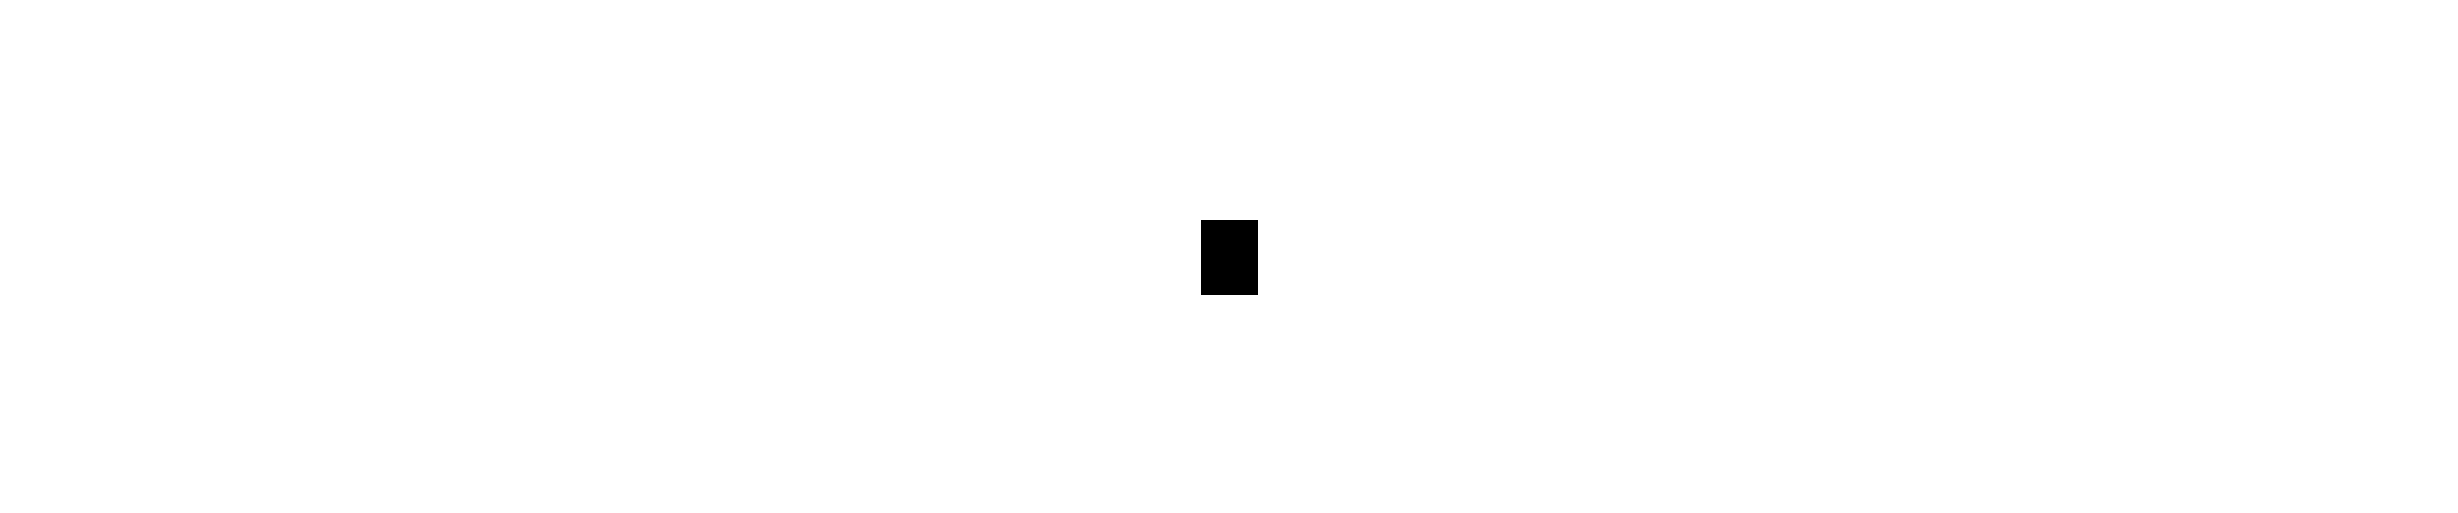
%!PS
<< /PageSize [2458 513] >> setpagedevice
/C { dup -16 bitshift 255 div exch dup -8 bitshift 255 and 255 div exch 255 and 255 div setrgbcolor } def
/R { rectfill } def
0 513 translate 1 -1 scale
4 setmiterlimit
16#FFFFFF C
0 0 2458 513 R
16#000000 C
1201 220 57 75 R
showpage
